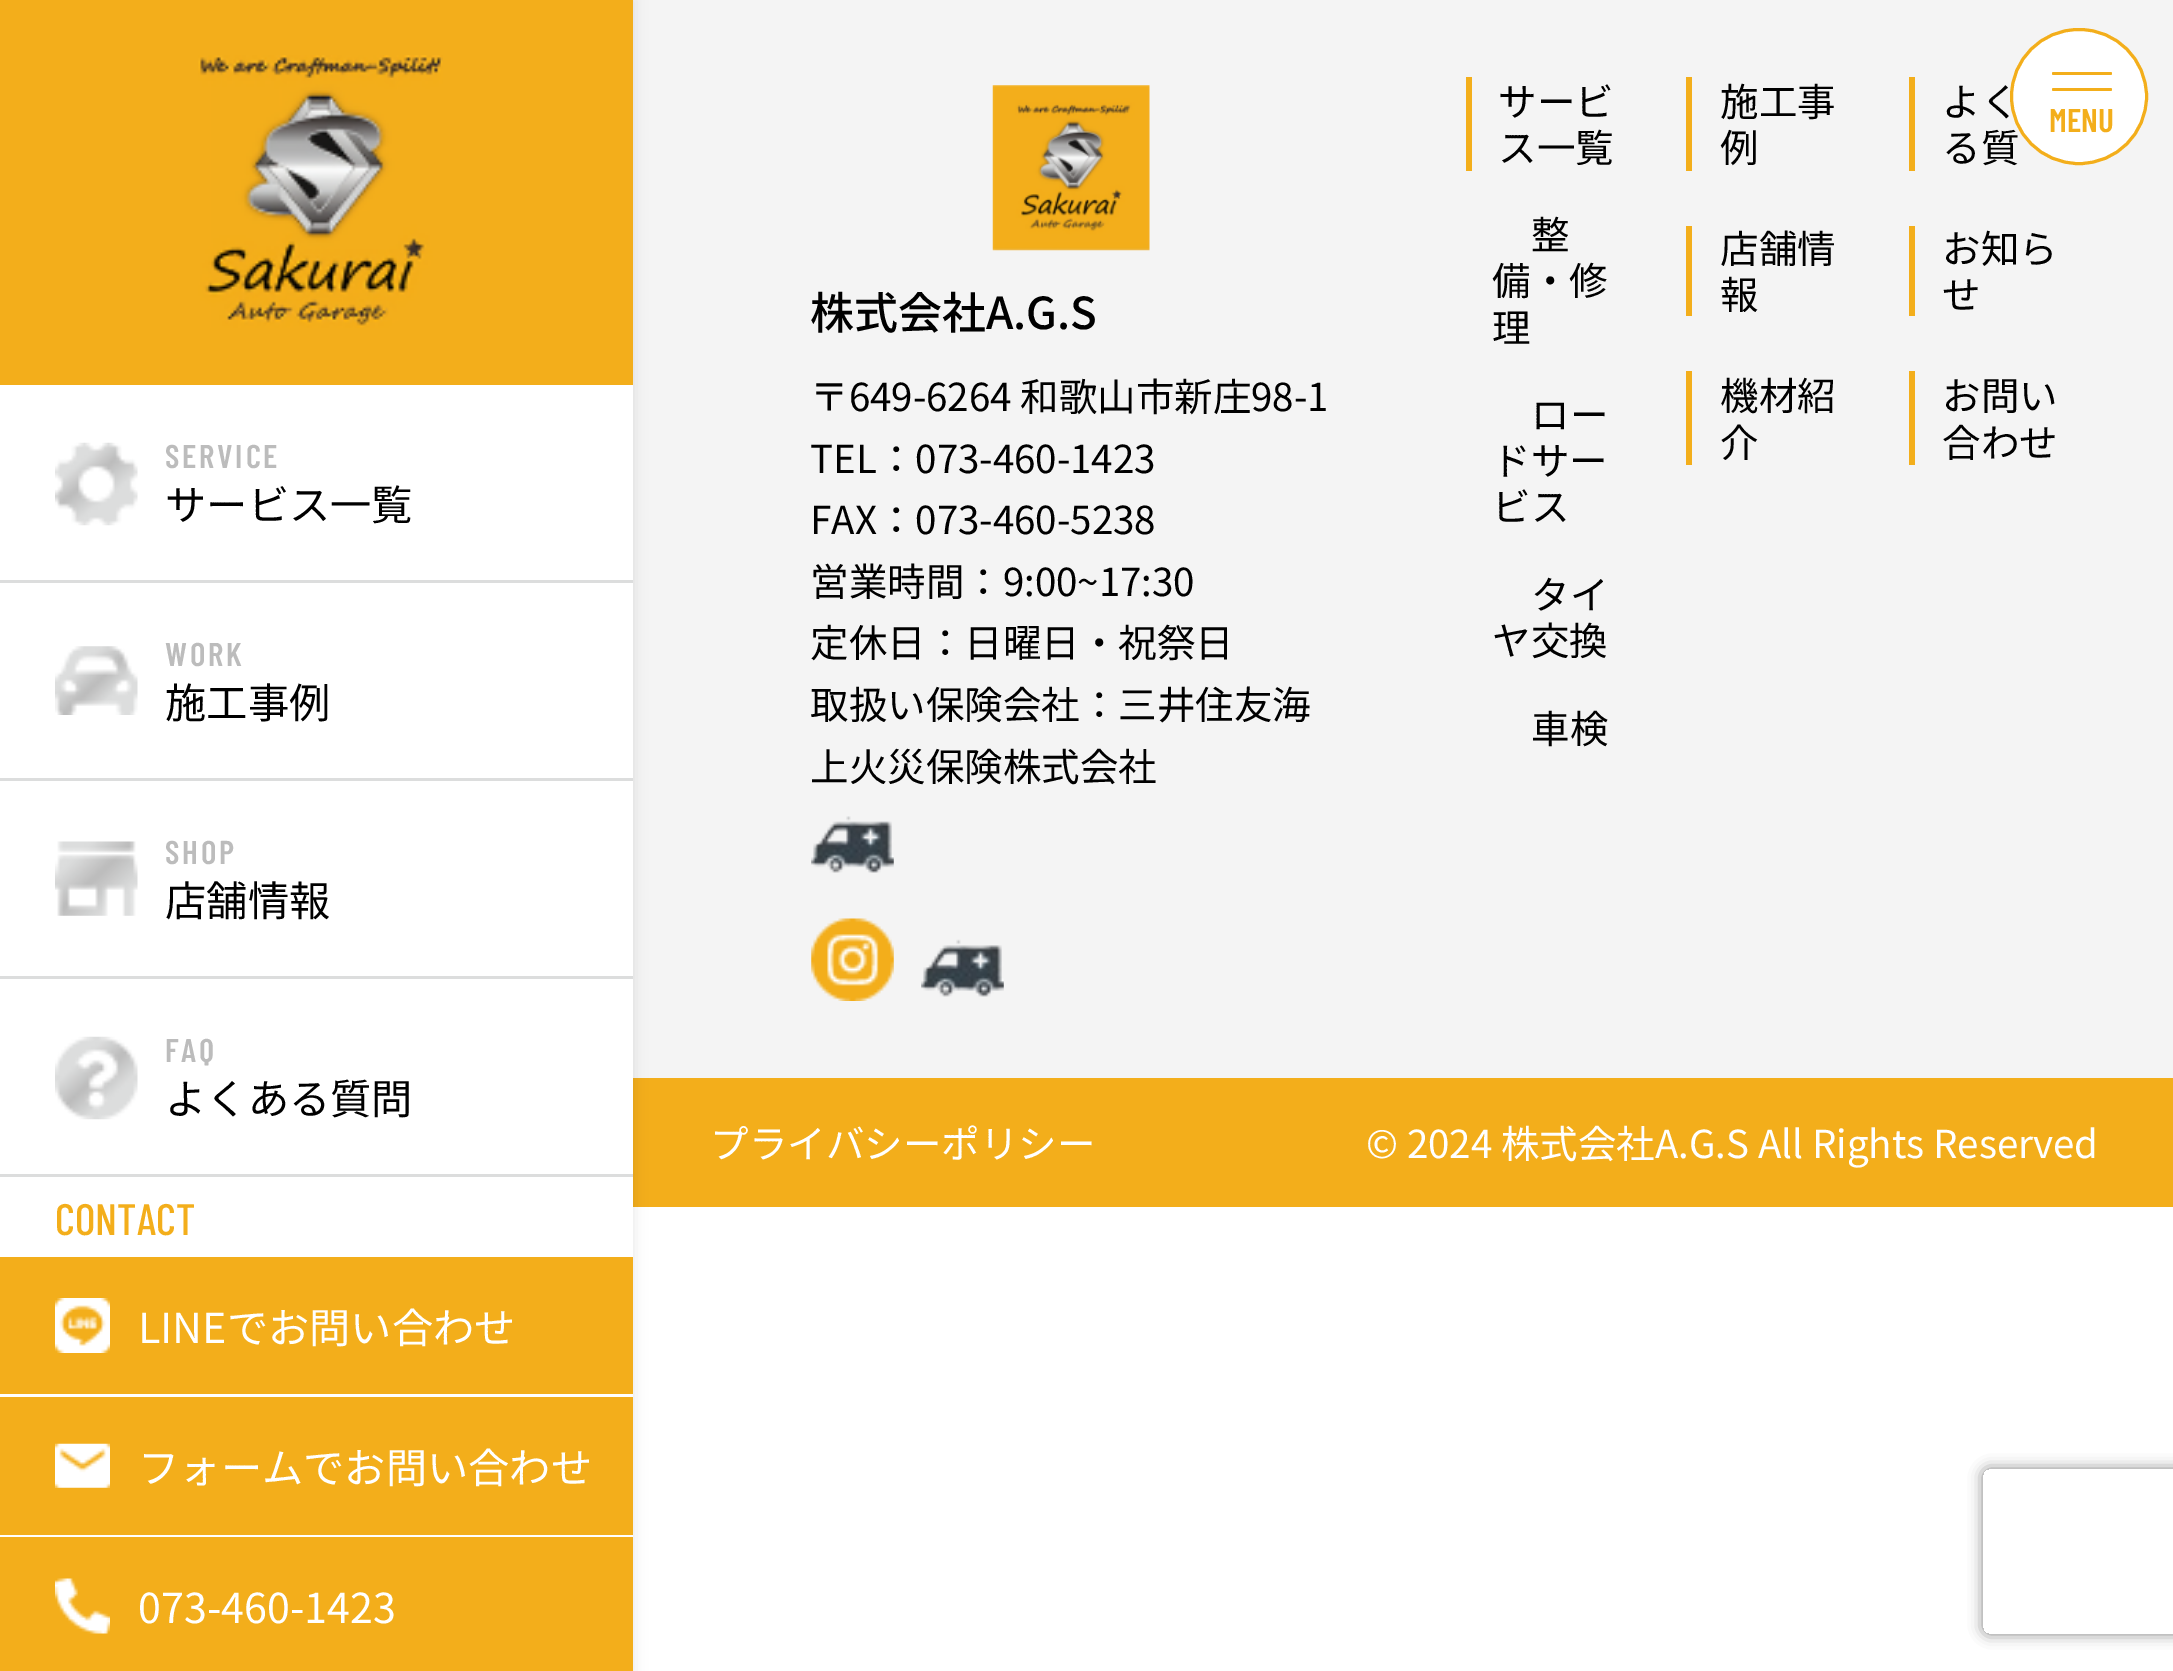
%!PS
<< /PageSize [2173 1671] /PageUsesTransparency true >> setpagedevice
/m/moveto load def
/l/rlineto load def
/c/rcurveto load def
/z/closepath load def
/f/fill load def
/s/stroke load def
/q/gsave load def
/Q_/grestore load def
/w/setlinewidth load def
/C { dup -16 bitshift 255 div exch dup -8 bitshift 255 and 255 div exch 255 and 255 div setrgbcolor } def
/F { [ exch dup neg 0 0 3 -1 roll 0 0 ] selectfont } def
/T { moveto show } def
/R { rectfill } def
/A { dup .setfillconstantalpha .setstrokeconstantalpha } def
/Q { 5 dict begin { /r /h /w /y /x } { exch def } forall
  x r add y moveto x w add y 2 copy h add r arct x w add y h add x 1 index r arct
  x y h add x y r arct x y 2 copy exch w add exch r arct closepath end } def
/S { 12 dict begin { /a /b /q /h /w /y /x } { exch def } forall gsave /was 0 def
  9 -2 -9 { dup b mul 4 div /e exch def 1 sub .425 mul 2.718 exch exp 1 add a .99 .min exch div /now exch def
    1 1 now sub 1 was sub div sub A /was now def
    w h .min e 2 mul add 0 gt { x e sub y e sub w e 2 mul add h e 2 mul add
      q e add b .6 mul add w h .min 2 div e add .min 0 .max Q fill } if } for grestore end } def
/I { 5 dict begin { /h /w /y /x /name } { exch def } forall
  gsave x y translate w h scale
  w h 8 [w 0 0 h 0 0] name (r) file false 3 colorimage grestore end } def
0 .pushpdf14devicefilter
0 1671 translate 1 -1 scale
4 setmiterlimit
16#FFFFFF C
0 0 2173 1671 R
16#F4F4F4 C
633 0 1540 1078 R
(1.rgb) 992 85 158 166 I
/NotoSansJP-Medium 44 F
16#000000 C
(株式会社A.G.S) 810 329 T
/NotoSansJP-Regular 38.5 F
(〒649-6264 和歌山市新庄98-1) 810 411 T
(TEL：073-460-1423) 810 473 T
(FAX：073-460-5238) 810 534 T
(営業時間：9:00~17:30) 810 596 T
(定休日：日曜日・祝祭日) 810 657 T
(取扱い保険会社：三井住友海) 810 719 T
(上火災保険株式会社) 810 781 T
(2.rgb) 811 816 83 57 I
(3.rgb) 811 918 83 83 I
(4.rgb) 921 939 83 58 I
16#F3AE1B C
1466 77 6 94 R
16#000000 C
(サービ) 1498 116 T
(ス一覧) 1498 162 T
(整) 1531 249 T
(備・修) 1492 295 T
(理) 1492 342 T
(ロー) 1531 429 T
(ドサー) 1492 475 T
(ビス) 1492 521 T
(タイ) 1531 609 T
(ヤ交換) 1492 655 T
(車検) 1531 743 T
16#F3AE1B C
1686 77 6 94 R
16#000000 C
(施工事) 1720 116 T
(例) 1720 162 T
16#F3AE1B C
1686 226 6 90 R
16#000000 C
(店舗情) 1720 263 T
(報) 1720 309 T
16#F3AE1B C
1686 371 6 94 R
16#000000 C
(機材紹) 1720 410 T
(介) 1720 457 T
16#F3AE1B C
1909 77 6 94 R
16#000000 C
(よく) 1942 116 T
(る質) 1942 162 T
16#F3AE1B C
1909 226 6 90 R
16#000000 C
(お知ら) 1942 263 T
(せ) 1942 309 T
16#F3AE1B C
1909 371 6 94 R
16#000000 C
(お問い) 1942 410 T
(合わせ) 1942 457 T
16#F3AE1B C
633 1078 1540 129 R
16#FFFFFF C
(プライバシーポリシー) 710 1158 T
(© 2024 株式会社A.G.S All Rights Reserved) 1366 1158 T
16#000000 C
0 0 633 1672 0 7 .1 S
16#FFFFFF C
0 385 633 1152 R
2011.5 29.5 135 134 67 Q q f Q_
16#F3AE1B C
3 w
s
2052 88 60 3 1.5 Q f
2052 72 60 3 1.5 Q f
/BarlowCondensed-SemiBold 33 F
(MENU) 2049 132 T
0 0 633 385 R
(5.rgb) 198 55 245 273 I
16#DCDDDD C
0 580 633 3 R
(6.rgb) 55 442 83 84 I
16#BCBCBC C
165 468 m 2.75 0 (SERVICE) ashow
/NotoSansJP-Regular 41.25 F
16#000000 C
(サービス一覧) 165 520 T
16#DCDDDD C
0 778 633 3 R
(7.rgb) 55 646 83 69 I
/BarlowCondensed-SemiBold 33 F
16#BCBCBC C
165 666 m 2.75 0 (WORK) ashow
/NotoSansJP-Regular 41.25 F
16#000000 C
(施工事例) 165 718 T
16#DCDDDD C
0 976 633 3 R
(8.rgb) 55 841 83 75 I
/BarlowCondensed-SemiBold 33 F
16#BCBCBC C
165 864 m 2.75 0 (SHOP) ashow
/NotoSansJP-Regular 41.25 F
16#000000 C
(店舗情報) 165 916 T
16#DCDDDD C
0 1174 633 3 R
(9.rgb) 55 1036 83 84 I
/BarlowCondensed-SemiBold 33 F
16#BCBCBC C
165 1062 m 2.75 0 (FAQ) ashow
/NotoSansJP-Regular 41.25 F
16#000000 C
(よくある質問) 165 1114 T
/BarlowCondensed-Medium 44 F
16#F3AE1B C
(CONTACT) 55 1235 T
0 1257 633 137 R
(10.rgb) 55 1298 55 55 I
/NotoSansJP-Regular 41.25 F
16#FFFFFF C
(LINEでお問い合わせ) 138 1343 T
16#F3AE1B C
0 1397 633 138 R
(11.rgb) 55 1443 55 45 I
16#FFFFFF C
(フォームでお問い合わせ) 138 1483 T
16#F3AE1B C
0 1537 633 134 R
(12.rgb) 55 1578 55 56 I
16#FFFFFF C
(073-460-1423) 138 1623 T
q
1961 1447 m 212 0 l 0 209 l -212 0 l z 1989 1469 m 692 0 l 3.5 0 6 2.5 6 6 c 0 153 l 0 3.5 -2.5 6 -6 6 c -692 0 l -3.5 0 -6 -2.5 -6 -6 c 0 -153 l 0 -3.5 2.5 -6 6 -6 c z eoclip newpath
16#808080 C
1983 1469 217 165 6 7 1 S
Q_
.poppdf14devicefilter showpage
